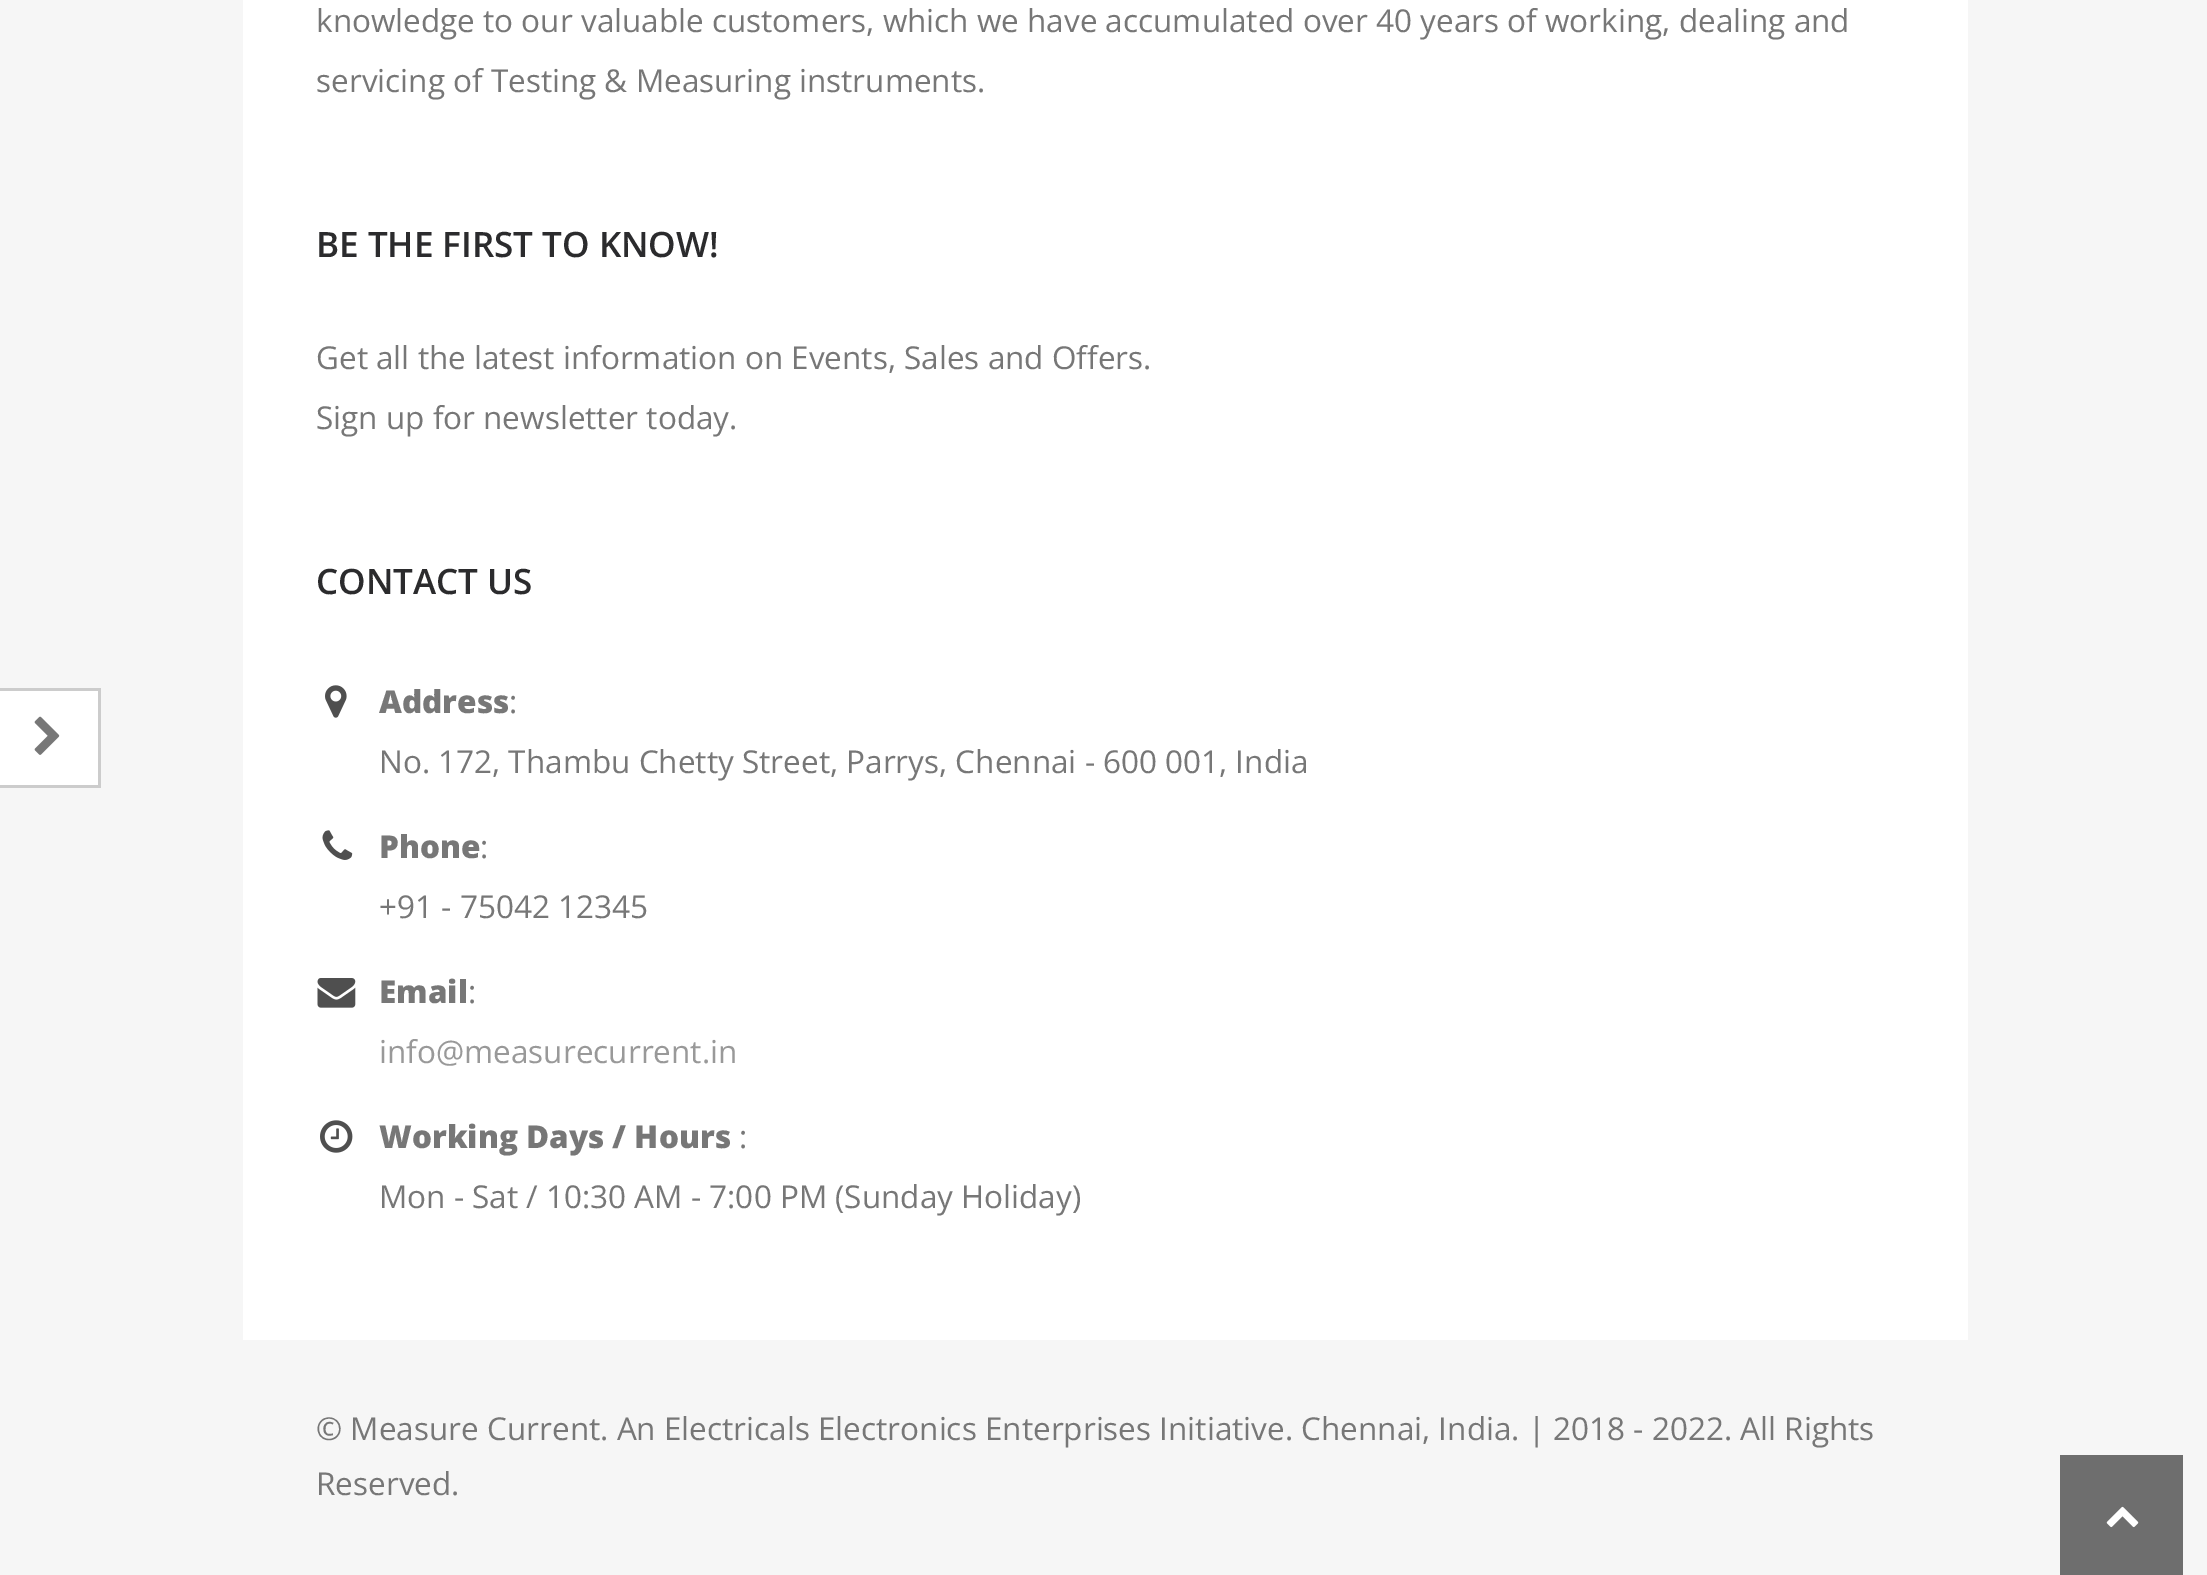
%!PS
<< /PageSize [2207 1575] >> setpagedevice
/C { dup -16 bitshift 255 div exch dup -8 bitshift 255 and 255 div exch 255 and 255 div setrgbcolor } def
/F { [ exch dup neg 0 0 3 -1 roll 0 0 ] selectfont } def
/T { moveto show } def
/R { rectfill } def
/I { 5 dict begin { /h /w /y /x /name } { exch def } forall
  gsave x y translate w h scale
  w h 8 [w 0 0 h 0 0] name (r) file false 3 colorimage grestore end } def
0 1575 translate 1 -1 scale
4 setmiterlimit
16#F6F6F6 C
0 0 2207 1575 R
16#FFFFFF C
0 691 98 94 R
16#CCCCCC C
0 688 100 3 R
98 688 3 100 R
0 785 100 3 R
(1.rgb) 34 716 26 39 I
16#FFFFFF C
243 0 1725 1340 R
/OpenSans-Regular 31.5 F
16#777777 C
(knowledge to our valuable customers, which we have accumulated over 40 years of working, dealing and) 316 32 T
(servicing of Testing & Measuring instruments.) 316 92 T
/OpenSans-SemiBold 35 F
16#2B2B2D C
(BE THE FIRST TO KNOW!) 316 257 T
/OpenSans-Regular 31.5 F
16#777777 C
(Get all the latest information on Events, Sales and Offers.) 316 369 T
(Sign up for newsletter today.) 316 429 T
/OpenSans-SemiBold 35 F
16#2B2B2D C
(CONTACT US) 316 594 T
(2.rgb) 325 685 22 33 I
/OpenSans-ExtraBold 31.5 F
16#777777 C
(Address) 379 713 T
/OpenSans-Regular 31.5 F
(:) 509 713 T
(No. 172, Thambu Chetty Street, Parrys, Chennai - 600 001, India) 379 773 T
(3.rgb) 322 830 31 30 I
/OpenSans-ExtraBold 31.5 F
(Phone) 379 858 T
/OpenSans-Regular 31.5 F
(:) 480 858 T
(+91 - 75042 12345) 379 918 T
(4.rgb) 317 978 39 30 I
/OpenSans-ExtraBold 31.5 F
(Email) 379 1003 T
/OpenSans-Regular 31.5 F
(:) 468 1003 T
16#999999 C
(info@measurecurrent.in) 379 1063 T
(5.rgb) 320 1120 33 33 I
/OpenSans-ExtraBold 31.5 F
16#777777 C
(Working Days / Hours) 379 1148 T
/OpenSans-Regular 31.5 F
(:) 739 1148 T
(Mon - Sat / 10:30 AM - 7:00 PM \(Sunday Holiday\)) 379 1208 T
(© Measure Current. An Electricals Electronics Enterprises Initiative. Chennai, India. | 2018 - 2022. All Rights) 316 1440 T
(Reserved.) 316 1495 T
16#6E6E6E C
2060 1455 123 120 R
(6.rgb) 2106 1506 33 22 I
showpage
